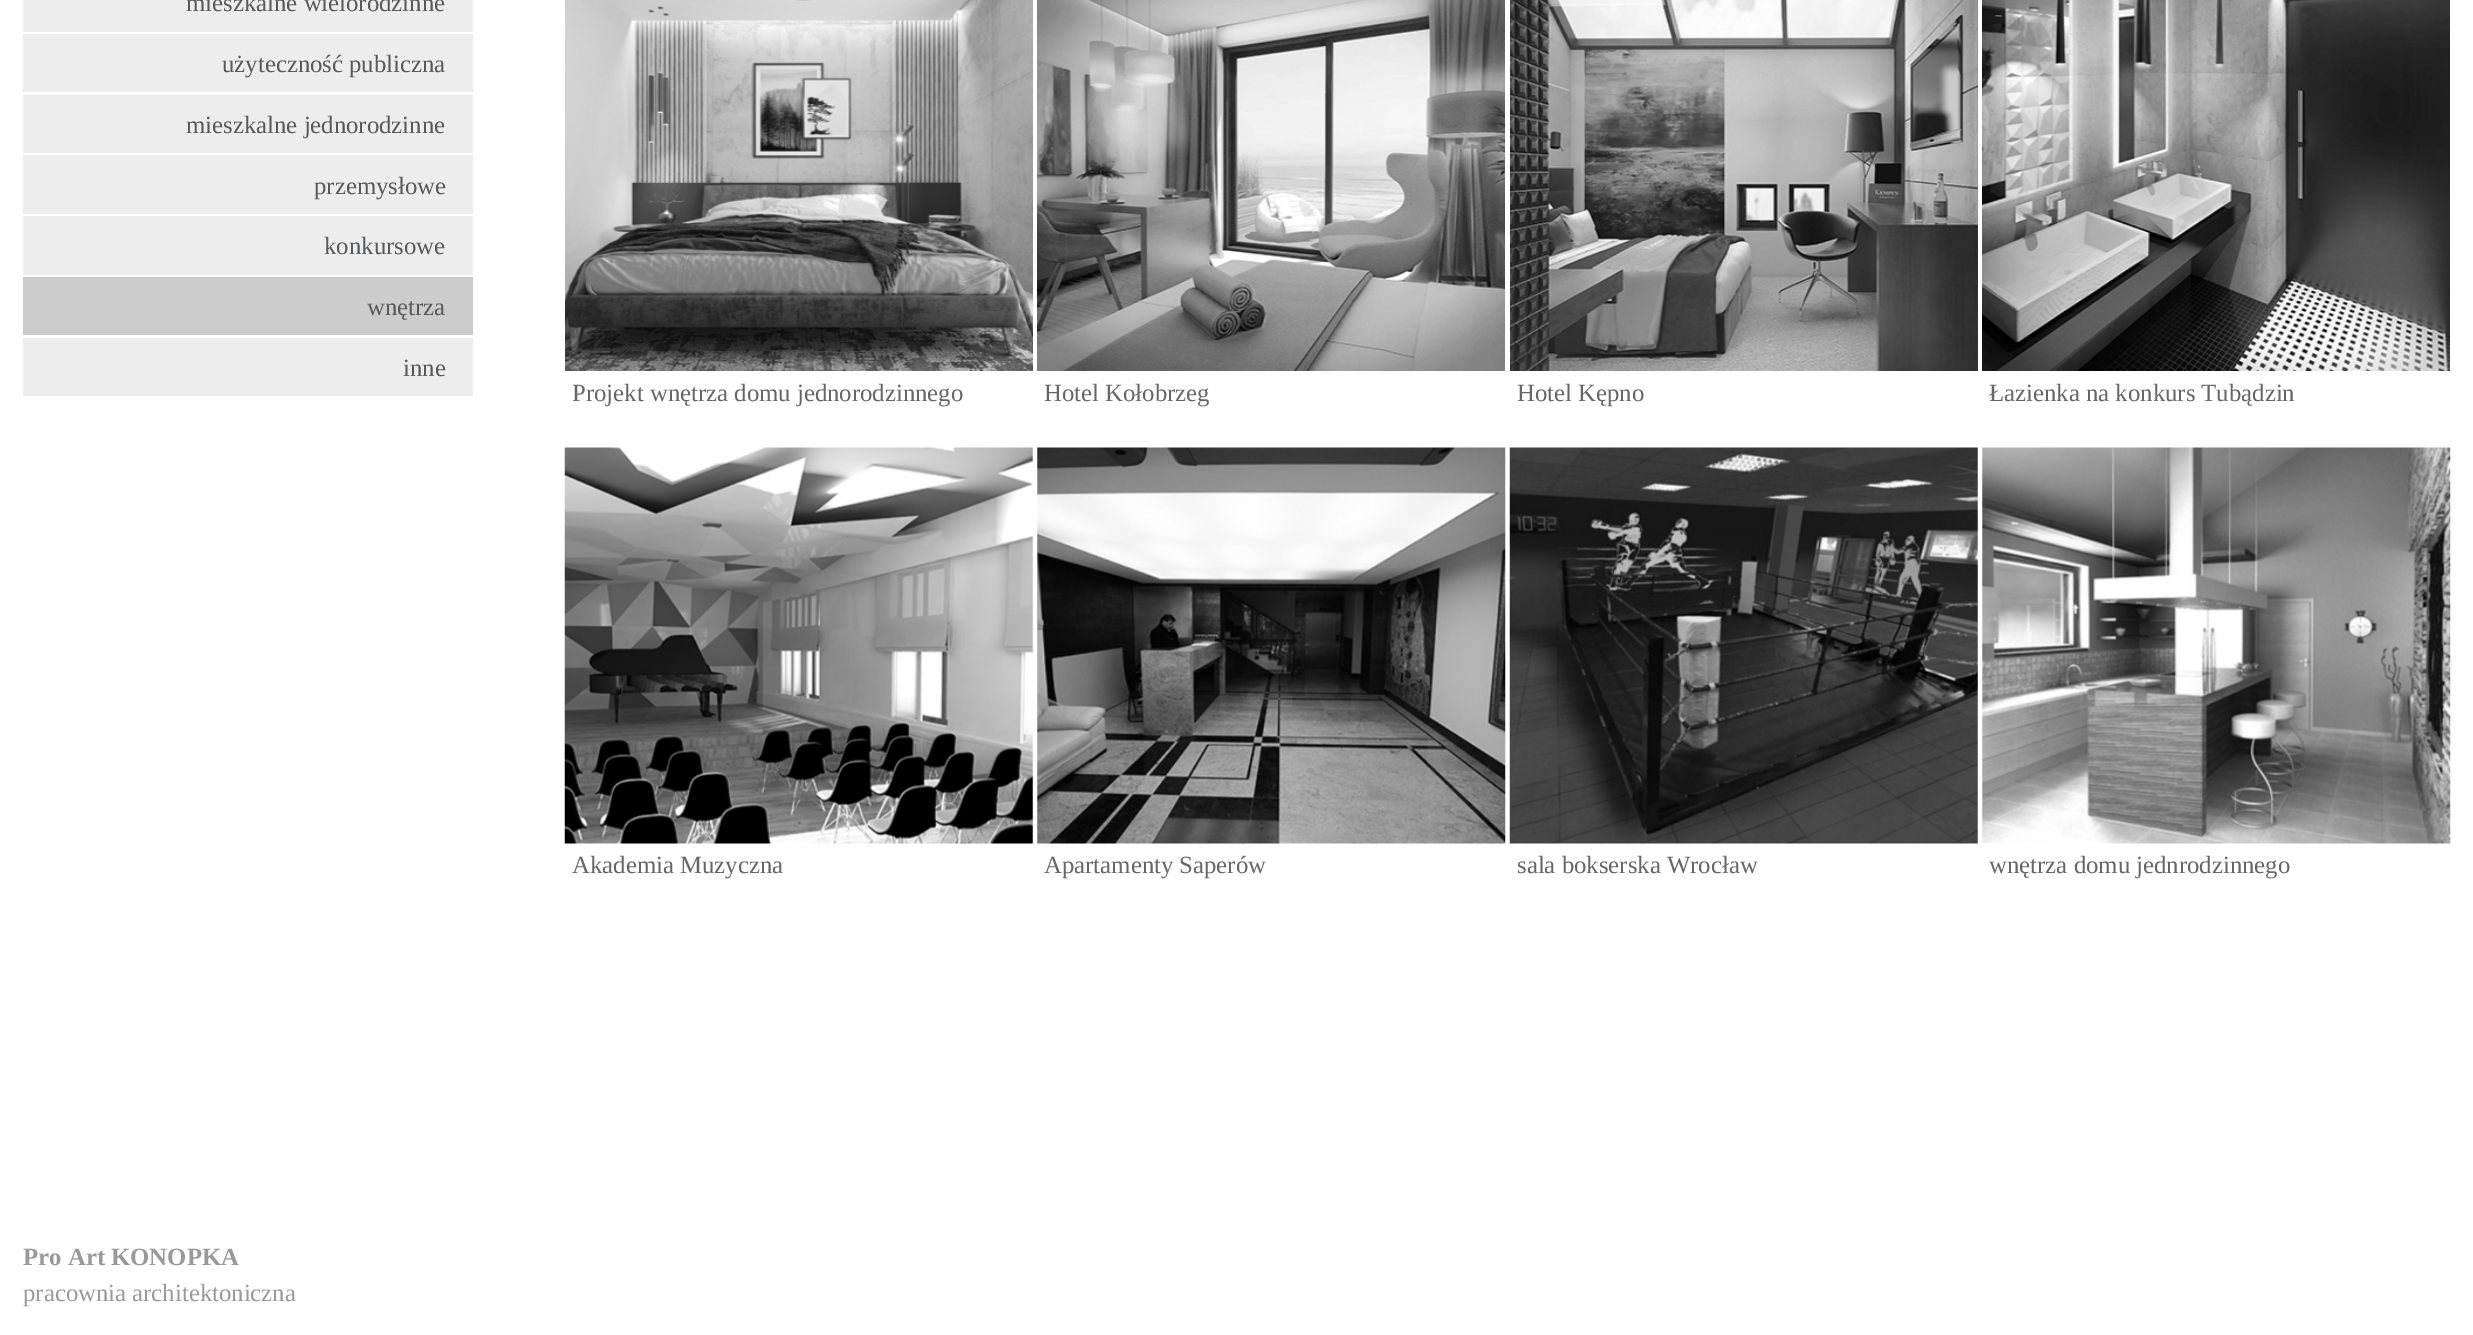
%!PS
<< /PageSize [2473 1335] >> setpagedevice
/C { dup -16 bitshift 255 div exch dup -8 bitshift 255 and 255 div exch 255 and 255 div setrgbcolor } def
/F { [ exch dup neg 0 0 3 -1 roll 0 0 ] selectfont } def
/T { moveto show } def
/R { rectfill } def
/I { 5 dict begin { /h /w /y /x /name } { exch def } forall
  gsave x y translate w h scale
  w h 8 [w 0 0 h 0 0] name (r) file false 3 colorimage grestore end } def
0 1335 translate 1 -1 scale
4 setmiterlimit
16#FFFFFF C
0 0 2473 1335 R
16#EDEDED C
23 0 450 32 R
/LiberationSerif-Regular 24.75 F
16#58595B C
(mieszkalne wielorodzinne) 186 11 T
16#EDEDED C
23 34 450 58 R
16#58595B C
(użyteczność publiczna) 222 72 T
16#EDEDED C
23 95 450 58 R
16#58595B C
(mieszkalne jednorodzinne) 186 133 T
16#EDEDED C
23 155 450 59 R
16#58595B C
(przemysłowe) 314 194 T
16#EDEDED C
23 216 450 59 R
16#58595B C
(konkursowe) 324 254 T
16#CCCCCC C
23 277 450 58 R
16#58595B C
(wnętrza) 367 315 T
16#EDEDED C
23 338 450 58 R
16#58595B C
(inne) 403 376 T
(1.rgb) 565 0 468 371 I
16#666666 C
(Projekt wnętrza domu jednorodzinnego) 572 401 T
(2.rgb) 1037 0 468 371 I
(Hotel Kołobrzeg) 1044 401 T
(3.rgb) 1510 0 468 371 I
(Hotel Kępno) 1517 401 T
(4.rgb) 1982 0 468 371 I
(Łazienka na konkurs Tubądzin) 1989 401 T
(5.rgb) 564 447 469 397 I
(Akademia Muzyczna) 572 873 T
(6.rgb) 1037 447 469 397 I
(Apartamenty Saperów) 1044 873 T
(7.rgb) 1509 447 469 397 I
(sala bokserska Wrocław) 1517 873 T
(8.rgb) 1982 447 469 397 I
(wnętrza domu jednrodzinnego) 1989 873 T
/LiberationSerif-Bold 24.75 F
16#999999 C
(Pro Art KONOPKA) 23 1265 T
/LiberationSerif-Regular 24.75 F
(pracownia architektoniczna) 23 1301 T
showpage
